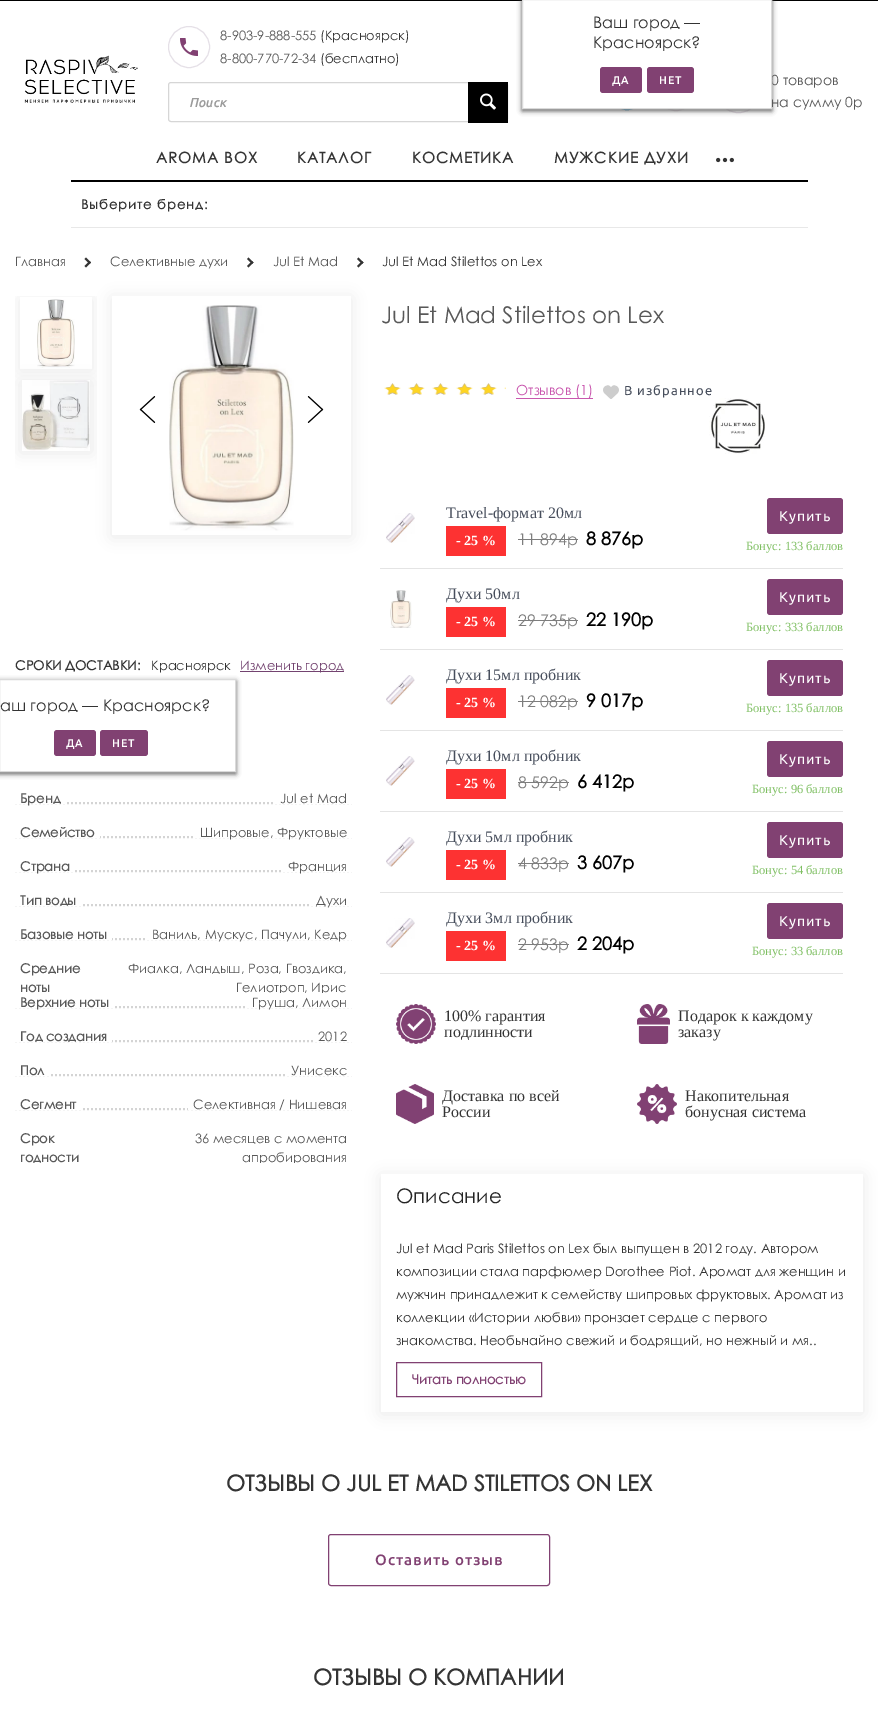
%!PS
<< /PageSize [878 1726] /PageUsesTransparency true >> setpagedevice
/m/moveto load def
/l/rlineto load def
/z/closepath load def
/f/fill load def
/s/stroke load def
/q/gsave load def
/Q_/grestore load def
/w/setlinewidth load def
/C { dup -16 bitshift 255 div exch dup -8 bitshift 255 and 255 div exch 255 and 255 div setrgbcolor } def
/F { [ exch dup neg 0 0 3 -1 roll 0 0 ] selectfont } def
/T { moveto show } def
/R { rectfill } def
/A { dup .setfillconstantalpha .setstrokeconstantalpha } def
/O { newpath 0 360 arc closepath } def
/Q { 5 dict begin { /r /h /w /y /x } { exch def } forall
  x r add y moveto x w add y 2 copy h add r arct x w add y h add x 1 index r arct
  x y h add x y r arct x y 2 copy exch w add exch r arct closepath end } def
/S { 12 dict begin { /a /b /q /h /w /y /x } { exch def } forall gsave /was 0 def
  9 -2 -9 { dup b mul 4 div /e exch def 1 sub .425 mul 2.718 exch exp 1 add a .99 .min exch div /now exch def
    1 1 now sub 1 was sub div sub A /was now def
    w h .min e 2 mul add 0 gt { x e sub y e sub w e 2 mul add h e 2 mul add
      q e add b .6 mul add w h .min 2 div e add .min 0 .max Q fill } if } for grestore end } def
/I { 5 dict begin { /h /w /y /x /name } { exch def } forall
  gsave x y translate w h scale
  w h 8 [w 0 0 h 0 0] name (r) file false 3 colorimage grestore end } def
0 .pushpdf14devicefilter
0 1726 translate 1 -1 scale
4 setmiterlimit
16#FFFFFF C
0 0 878 1726 R
16#000000 C
0 0 878 1 R
16#0088CC C
627 91 18.5 O s
16#E3DCE4 C
676 91 19.5 O s
716.5 69.5 44 43 21.5 Q s
16#5B5A5A C
522 -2 250 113 0 2.5 1 S
/CenturyGothic-Regular 14 F
16#585858 C
(0 товаров) 771 85 T
16#FFFFFF C
522.5 -.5 m 249 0 l 0 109 l -249 0 l z q f Q_
16#DADADA C
s
/CenturyGothic-Regular 16 F
16#343434 C
(Ваш город —) 593 28 T
(Красноярск?) 593 48 T
16#814172 C
600 67 42 26 3 Q f
/Ubuntu-Medium 11 F
16#FFFFFF C
612 84 m 1 0 (ДА) ashow
16#814172 C
647 67 47 26 3 Q f
16#FFFFFF C
659 84 m 1 0 (НЕТ) ashow
(1.rgb) 24 55 114 48 I
16#E5E0E7 C
189 47 20.5 O s
(2.rgb) 180 38 18 18 I
/CenturyGothic-Regular 13 F
16#585858 C
(8-903-9-888-555) 220 40 T
16#343434 C
(\(Красноярск\)) 320 40 T
16#585858 C
(8-800-770-72-34) 220 63 T
16#343434 C
(\(бесплатно\)) 320 63 T
16#D6D6D6 C
168.5 82.5 339 39 2.5 Q s
/Ubuntu-MediumItalic 13 F
16#9B9B9B C
(Поиск) 189 107 T
16#000000 C
468 82 40 41 R
(3.rgb) 480 93 16 17 I
/CenturyGothic-Regular 14 F
16#585858 C
(на сумму 0р) 771 107 T
16#000000 C
71 180 737 2 R
/CenturyGothic-Bold 15 F
16#343434 C
156 163 m 1 0 (AROMA BOX) ashow
297 163 m 1 0 (КАТАЛОГ) ashow
412 163 m 1 0 (КОСМЕТИКА) ashow
554 163 m 1 0 (МУЖСКИЕ ДУХИ) ashow
(4.rgb) 716 157 18 6 I
/CenturyGothic-Bold 13 F
81 209 m 1 0 (Выберите бренд:) ashow
16#E8E8E8 C
71 227 737 1 R
/CenturyGothic-Regular 13 F
16#585858 C
(Главная) 15 266 T
16#343434 C
86 257.5 m 5 5 l -1.5 1.5 l -5 -5 l z f
89.5 261 m 1.5 1.5 l -5 5 l -1.5 -1.5 l z f
16#585858 C
(Селективные духи) 110 266 T
16#343434 C
248.5 257.5 m 5 5 l -1.5 1.5 l -5 -5 l z f
252 261 m 1.5 1.5 l -5 5 l -1.5 -1.5 l z f
16#585858 C
(Jul Et Mad) 273 266 T
16#343434 C
358.5 257.5 m 5 5 l -1.5 1.5 l -5 -5 l z f
362 261 m 1.5 1.5 l -5 5 l -1.5 -1.5 l z f
(Jul Et Mad Stilettos on Lex) 382 266 T
q
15 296 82 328 rectclip
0 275 m 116 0 l 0 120 l -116 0 l z 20 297 m 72 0 l 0 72 l -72 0 l z eoclip newpath
16#EAEAEA C
20 299 72 72 0 7.5 1 S
Q_
(5.rgb) 37 299 38 69 I
q
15 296 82 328 rectclip
16#EAEAEA C
20 381 72 72 0 7.5 1 S
Q_
(6.rgb) 22 380 68 71 I
q
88 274 m 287 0 l 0 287 l -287 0 l z 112 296 m 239 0 l 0 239 l -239 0 l z eoclip newpath
16#EAEAEA C
112 298 239 239 0 7.5 1 S
Q_
(7.rgb) 139 396 17 27 I
(8.rgb) 169 305 125 226 I
(9.rgb) 307 396 17 27 I
(Красноярск) 151 670 T
16#5B5A5A C
-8 681 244 93 0 2.5 1 S
16#FFFFFF C
-.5 679.5 m 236 0 l 0 92 l -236 0 l z q f Q_
16#DADADA C
s
/CenturyGothic-Regular 16 F
16#343434 C
(аш город — Красноярск?) 0 711 T
16#814172 C
54 730 42 26 3 Q f
/Ubuntu-Medium 11 F
16#FFFFFF C
66 747 m 1 0 (ДА) ashow
16#814172 C
100 730 48 26 3 Q f
16#FFFFFF C
112 747 m 1 0 (НЕТ) ashow
/CenturyGothic-Bold 13 F
16#343434 C
(СРОКИ ДОСТАВКИ:) 15 670 T
16#734370 C
240 671 104 1 R
/CenturyGothic-Regular 13 F
(Изменить город) 240 670 T
16#D4D4D4 C
2 w
[2 2] 0 setdash
15 803 m 337 0 l s
16#FFFFFF C
15 802 50 2 R
/CenturyGothic-Bold 13 F
16#585858 C
(Бренд) 20 803 T
16#FFFFFF C
275 802 77 2 R
/CenturyGothic-Regular 13 F
16#585858 C
(Jul et Mad) 280 803 T
16#D4D4D4 C
15 837 m 337 0 l s
16#FFFFFF C
15 836 85 2 R
/CenturyGothic-Bold 13 F
16#585858 C
(Семейство) 20 837 T
16#FFFFFF C
195 836 157 2 R
/CenturyGothic-Regular 13 F
16#585858 C
(Шипровые, Фруктовые) 200 837 T
16#D4D4D4 C
15 871 m 337 0 l s
16#FFFFFF C
15 870 58 2 R
/CenturyGothic-Bold 13 F
16#585858 C
(Страна) 20 871 T
16#FFFFFF C
283 870 69 2 R
/CenturyGothic-Regular 13 F
16#585858 C
(Франция) 288 871 T
16#D4D4D4 C
15 905 m 337 0 l s
16#FFFFFF C
15 904 66 2 R
/CenturyGothic-Bold 13 F
16#585858 C
(Тип воды) 20 905 T
16#FFFFFF C
311 904 41 2 R
/CenturyGothic-Regular 13 F
16#585858 C
(Духи) 316 905 T
16#D4D4D4 C
15 939 m 337 0 l s
16#FFFFFF C
15 938 97 2 R
/CenturyGothic-Bold 13 F
16#585858 C
(Базовые ноты) 20 939 T
16#FFFFFF C
147 938 205 2 R
/CenturyGothic-Regular 13 F
16#585858 C
(Ваниль, Мускус, Пачули, Кедр) 152 939 T
/CenturyGothic-Bold 13 F
(Средние) 20 973 T
(ноты) 20 992 T
/CenturyGothic-Regular 13 F
(Фиалка, Ландыш, Роза, Гвоздика,) 128 973 T
(Гелиотроп, Ирис) 236 992 T
16#D4D4D4 C
15 1007 m 337 0 l s
16#FFFFFF C
15 1006 98 2 R
/CenturyGothic-Bold 13 F
16#585858 C
(Верхние ноты) 20 1007 T
16#FFFFFF C
247 993 105 15 R
/CenturyGothic-Regular 13 F
16#585858 C
(Груша, Лимон) 252 1007 T
16#D4D4D4 C
15 1041 m 337 0 l s
16#FFFFFF C
15 1040 97 2 R
/CenturyGothic-Bold 13 F
16#585858 C
(Год создания) 20 1041 T
16#FFFFFF C
315 1040 37 2 R
/CenturyGothic-Regular 13 F
16#585858 C
(2012) 318 1041 T
16#D4D4D4 C
15 1075 m 337 0 l s
16#FFFFFF C
15 1074 34 2 R
/CenturyGothic-Bold 13 F
16#585858 C
(Пол) 20 1075 T
16#FFFFFF C
287 1074 65 2 R
/CenturyGothic-Regular 13 F
16#585858 C
(Унисекс) 291 1075 T
16#D4D4D4 C
15 1109 m 337 0 l s
16#FFFFFF C
15 1108 66 2 R
/CenturyGothic-Bold 13 F
16#585858 C
(Сегмент) 20 1109 T
16#FFFFFF C
188 1108 164 2 R
/CenturyGothic-Regular 13 F
16#585858 C
(Селективная / Нишевая) 193 1109 T
/CenturyGothic-Bold 13 F
(Срок) 20 1143 T
(годности) 20 1162 T
/CenturyGothic-Regular 13 F
(36 месяцев с момента) 195 1143 T
q
111 1129 241 34 rectclip
(апробирования) 242 1162 T
Q_
/CenturyGothic-Regular 23 F
(Jul Et Mad Stilettos on Lex) 381 323 T
(10.rgb) 386 383 109 12 I
(11.rgb) 384 383 122 12 I
/CenturyGothic-Regular 14 F
16#C957AE C
(Отзывов \(1\)) 516 395 T
516 398 77 1 R
(12.rgb) 603 385 16 14 I
/Ubuntu-Regular 13 F
16#474E5C C
624 395 m 1 0 (В избранное) ashow
(13.rgb) 709 398 56 56 I
(14.rgb) 386 513 29 30 I
/LiberationSerif-Regular 16 F
(Travel-формат 20мл) 446 518 T
16#FD3232 C
446 526 60 30 R
/LiberationSerif-Bold 14 F
16#FFFFFF C
(- 25 %) 456 545 T
/CenturyGothic-Regular 16 F
16#7D7D7D C
(11 894р) 518 545 T
518 539 60 1 R
/CenturyGothic-Bold 18 F
16#000000 C
(8 876р) 586 545 T
16#E4E4E4 C
380 568 463 1 R
16#814172 C
767 498 76 36 3 Q f
/Ubuntu-Regular 14 F
16#FFFFFF C
779 521 m 1 0 (Купить) ashow
/LiberationSerif-Regular 12.5 F
16#7FBF63 C
(Бонус: 133 баллов) 746 550 T
(15.rgb) 390 590 22 38 I
/LiberationSerif-Regular 16 F
16#474E5C C
(Духи 50мл) 446 599 T
16#FD3232 C
446 607 60 30 R
/LiberationSerif-Bold 14 F
16#FFFFFF C
(- 25 %) 456 626 T
/CenturyGothic-Regular 16 F
16#7D7D7D C
(29 735р) 518 626 T
518 620 60 1 R
/CenturyGothic-Bold 18 F
16#000000 C
(22 190р) 586 626 T
16#E4E4E4 C
380 649 463 1 R
16#814172 C
767 579 76 36 3 Q f
/Ubuntu-Regular 14 F
16#FFFFFF C
779 602 m 1 0 (Купить) ashow
/LiberationSerif-Regular 12.5 F
16#7FBF63 C
(Бонус: 333 баллов) 746 631 T
(16.rgb) 386 675 29 30 I
/LiberationSerif-Regular 16 F
16#474E5C C
(Духи 15мл пробник) 446 680 T
16#FD3232 C
446 688 60 30 R
/LiberationSerif-Bold 14 F
16#FFFFFF C
(- 25 %) 456 707 T
/CenturyGothic-Regular 16 F
16#7D7D7D C
(12 082р) 518 707 T
518 701 60 1 R
/CenturyGothic-Bold 18 F
16#000000 C
(9 017р) 586 707 T
16#E4E4E4 C
380 730 463 1 R
16#814172 C
767 660 76 36 3 Q f
/Ubuntu-Regular 14 F
16#FFFFFF C
779 683 m 1 0 (Купить) ashow
/LiberationSerif-Regular 12.5 F
16#7FBF63 C
(Бонус: 135 баллов) 746 712 T
(16.rgb) 386 756 29 30 I
/LiberationSerif-Regular 16 F
16#474E5C C
(Духи 10мл пробник) 446 761 T
16#FD3232 C
446 769 60 30 R
/LiberationSerif-Bold 14 F
16#FFFFFF C
(- 25 %) 456 788 T
/CenturyGothic-Regular 16 F
16#7D7D7D C
(8 592р) 518 788 T
518 782 51 1 R
/CenturyGothic-Bold 18 F
16#000000 C
(6 412р) 577 788 T
16#E4E4E4 C
380 811 463 1 R
16#814172 C
767 741 76 36 3 Q f
/Ubuntu-Regular 14 F
16#FFFFFF C
779 764 m 1 0 (Купить) ashow
/LiberationSerif-Regular 12.5 F
16#7FBF63 C
(Бонус: 96 баллов) 752 793 T
(16.rgb) 386 837 29 30 I
/LiberationSerif-Regular 16 F
16#474E5C C
(Духи 5мл пробник) 446 842 T
16#FD3232 C
446 850 60 30 R
/LiberationSerif-Bold 14 F
16#FFFFFF C
(- 25 %) 456 869 T
/CenturyGothic-Regular 16 F
16#7D7D7D C
(4 833р) 518 869 T
518 863 51 1 R
/CenturyGothic-Bold 18 F
16#000000 C
(3 607р) 577 869 T
16#E4E4E4 C
380 892 463 1 R
16#814172 C
767 822 76 36 3 Q f
/Ubuntu-Regular 14 F
16#FFFFFF C
779 845 m 1 0 (Купить) ashow
/LiberationSerif-Regular 12.5 F
16#7FBF63 C
(Бонус: 54 баллов) 752 874 T
(14.rgb) 386 918 29 30 I
/LiberationSerif-Regular 16 F
16#474E5C C
(Духи 3мл пробник) 446 923 T
16#FD3232 C
446 931 60 30 R
/LiberationSerif-Bold 14 F
16#FFFFFF C
(- 25 %) 456 950 T
/CenturyGothic-Regular 16 F
16#7D7D7D C
(2 953р) 518 950 T
518 944 51 1 R
/CenturyGothic-Bold 18 F
16#000000 C
(2 204р) 577 950 T
16#E4E4E4 C
380 973 463 1 R
16#814172 C
767 903 76 36 3 Q f
/Ubuntu-Regular 14 F
16#FFFFFF C
779 926 m 1 0 (Купить) ashow
/LiberationSerif-Regular 12.5 F
16#7FBF63 C
(Бонус: 33 баллов) 752 955 T
(17.rgb) 396 1004 40 40 I
/LiberationSerif-Regular 16 F
16#343434 C
(100% гарантия) 444 1021 T
(подлинности) 444 1037 T
(18.rgb) 637 1004 33 40 I
(Подарок к каждому) 678 1021 T
(заказу) 678 1037 T
(19.rgb) 396 1084 38 40 I
(Доставка по всей) 442 1101 T
(России) 442 1117 T
(20.rgb) 637 1084 40 40 I
(Накопительная) 685 1101 T
(бонусная система) 685 1117 T
q
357 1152 m 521 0 l 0 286 l -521 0 l z 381 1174 m 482 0 l 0 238 l -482 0 l z eoclip newpath
16#EAEAEA C
381 1176 482 238 0 7.5 1 S
Q_
/CenturyGothic-Regular 20 F
16#242424 C
(Описание) 396 1203 T
/CenturyGothic-Regular 13 F
16#343434 C
(Jul et Mad Paris Stilettos on Lex был выпущен в 2012 году. Автором) 396 1253 T
(композиции стала парфюмер Dorothee Piot. Аромат для женщин и) 396 1276 T
(мужчин принадлежит к семейству шипровых фруктовых. Аромат из) 396 1299 T
(коллекции «Истории любви» пронзает сердце с первого) 396 1322 T
(знакомства. Необычайно свежий и бодрящий, но нежный и мя..) 396 1345 T
16#814172 C
1 w
[] 0 setdash
396.5 1362.5 145 34 rectstroke
/CenturyGothic-Bold 13 F
(Читать полностью) 412 1384 T
/CenturyGothic-Bold 22 F
16#343434 C
(ОТЗЫВЫ О JUL ET MAD STILETTOS ON LEX) 226 1491 T
16#814172 C
328.5 1534.5 221 51 2.5 Q s
/Ubuntu-Medium 15 F
375 1565 m 1 0 (Оставить отзыв) ashow
/CenturyGothic-Bold 22 F
16#343434 C
(OТЗЫВЫ О КОМПАНИИ) 313 1685 T
.poppdf14devicefilter showpage
